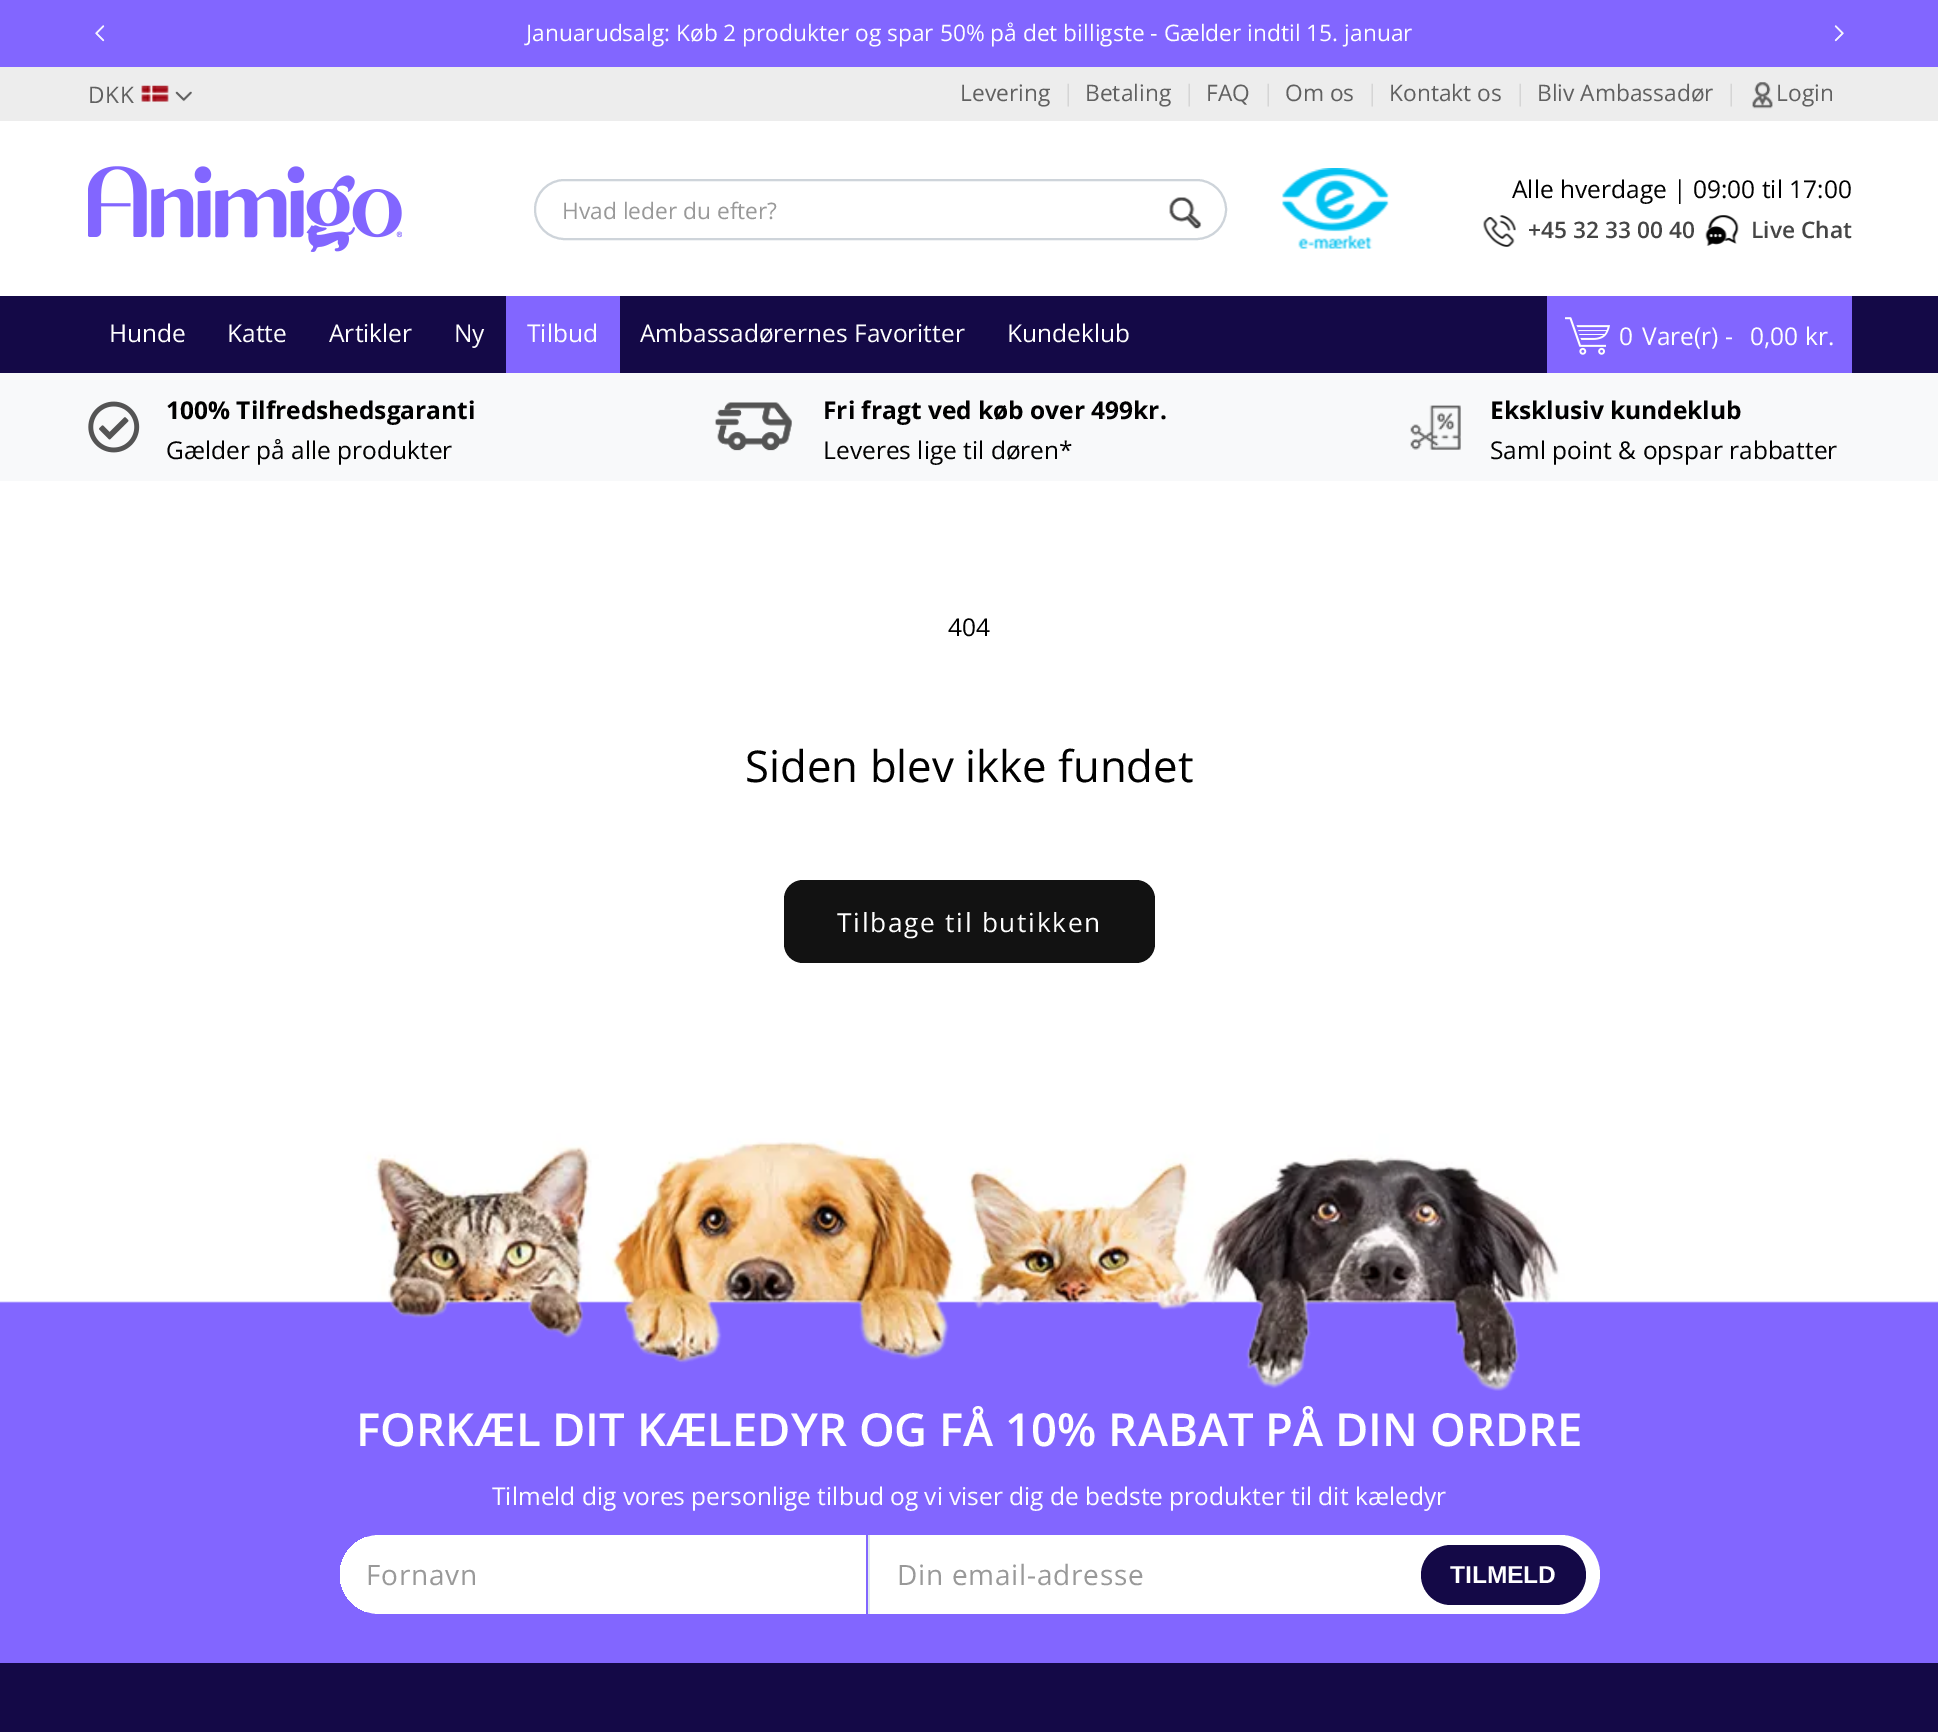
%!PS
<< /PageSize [1938 1732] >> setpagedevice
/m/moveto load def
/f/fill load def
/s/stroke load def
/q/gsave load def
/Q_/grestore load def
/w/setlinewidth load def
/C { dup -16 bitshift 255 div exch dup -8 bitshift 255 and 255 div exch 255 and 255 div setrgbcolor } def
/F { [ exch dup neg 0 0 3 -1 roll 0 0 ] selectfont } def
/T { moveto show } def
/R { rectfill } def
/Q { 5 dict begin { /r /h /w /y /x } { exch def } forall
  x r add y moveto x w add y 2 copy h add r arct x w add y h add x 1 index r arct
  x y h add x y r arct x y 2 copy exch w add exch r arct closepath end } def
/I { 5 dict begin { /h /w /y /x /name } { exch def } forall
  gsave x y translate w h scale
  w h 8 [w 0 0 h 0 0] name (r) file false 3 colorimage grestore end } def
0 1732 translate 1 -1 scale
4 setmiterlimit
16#FFFFFF C
0 0 1938 1732 R
16#8266FF C
0 0 1938 67 R
(1.rgb) 95 25 10 17 I
(2.rgb) 95 25 10 17 I
/OpenSans-Regular 22.75 F
16#FFFFFF C
(Januarudsalg: Køb 2 produkter og spar 50% på det billigste - Gælder indtil 15. januar) 526 41 T
(3.rgb) 1834 25 10 17 I
(4.rgb) 1834 25 10 17 I
16#EDEDED C
0 67 1938 54 R
16#606060 C
88 103 m .75 0 (DKK) ashow
(5.rgb) 141 85 28 17 I
(6.rgb) 175 91 17 11 I
(7.rgb) 175 91 17 10 I
(Levering) 960 101 T
16#D5D5D5 C
(|) 1062 101 T
16#606060 C
(Betaling) 1085 101 T
16#D5D5D5 C
(|) 1183 101 T
16#606060 C
(FAQ) 1206 101 T
16#D5D5D5 C
(|) 1262 101 T
16#606060 C
(Om os) 1285 101 T
16#D5D5D5 C
(|) 1366 101 T
16#606060 C
(Kontakt os) 1389 101 T
16#D5D5D5 C
(|) 1514 101 T
16#606060 C
(Bliv Ambassadør) 1537 101 T
16#D5D5D5 C
(|) 1725 101 T
(8.rgb) 1752 82 21 27 I
16#606060 C
(Login) 1776 101 T
(9.rgb) 88 166 314 86 I
16#CED4DA C
2 w
535 180 691 59 29.5 Q s
16#999999 C
(Hvad leder du efter?) 562 219 T
(10.rgb) 1169 197 33 32 I
(11.rgb) 1282 168 107 81 I
/OpenSans-Regular 24.5 F
16#000000 C
(Alle hverdage | 09:00 til 17:00) 1512 198 T
(12.rgb) 1483 215 33 32 I
/OpenSans-SemiBold 22.75 F
16#454545 C
(+45 32 33 00 40) 1528 238 T
(13.rgb) 1705 215 34 31 I
(Live Chat) 1751 238 T
16#140947 C
0 296 1938 77 R
/OpenSans-Regular 24.5 F
16#FFFFFF C
(Hunde) 109 342 T
(Katte) 227 342 T
(Artikler) 329 342 T
(Ny) 454 342 T
16#8266FF C
506 296 114 77 R
16#FFFFFF C
(Tilbud) 527 342 T
(Ambassadørernes Favoritter) 640 342 T
(Kundeklub) 1007 342 T
16#8266FF C
1547 296 305 77 R
(14.rgb) 1565 317 45 38 I
16#FFFFFF C
(0) 1619 345 T
(Vare\(r\) -) 1642 345 T
(0,00 kr.) 1750 345 T
16#F8F9FA C
0 373 1938 108 R
(15.rgb) 88 401 52 52 I
/OpenSans-Bold 24.5 F
16#000000 C
(100% Tilfredshedsgaranti) 166 419 T
/OpenSans-Regular 24.5 F
(Gælder på alle produkter) 166 459 T
(16.rgb) 715 402 77 49 I
/OpenSans-Bold 24.5 F
(Fri fragt ved køb over 499kr.) 823 419 T
/OpenSans-Regular 24.5 F
(Leveres lige til døren*) 823 459 T
(17.rgb) 1410 405 51 45 I
/OpenSans-Bold 24.5 F
(Eksklusiv kundeklub) 1490 419 T
/OpenSans-Regular 24.5 F
(Saml point & opspar rabbatter) 1490 459 T
(404) 948 636 T
/OpenSans-Regular 43.75 F
(Siden blev ikke fundet) 745 782 T
16#121212 C
784 880 371 83 19 Q f
/OpenSans-Regular 26.25 F
16#FFFFFF C
837 932 m 1.75 0 (Tilbage til butikken) ashow
16#8266FF C
0 1301 1938 362 R
(18.rgb) 0 1085 1938 306 I
/OpenSans-SemiBold 45.5 F
16#FFFFFF C
(FORKÆL DIT KÆLEDYR OG FÅ 10% RABAT PÅ DIN ORDRE) 356 1446 T
/OpenSans-Regular 24.5 F
(Tilmeld dig vores personlige tilbud og vi viser dig de bedste produkter til dit kæledyr) 492 1505 T
340 1535 1260 79 39.5 Q f
16#8266FF C
866 1535 2 79 R
q
340 1535 1260 79 39.5 Q clip newpath
16#FFFFFF C
340 1537 525 75 18 Q f
Q_
/OpenSans-Regular 28 F
16#999999 C
366 1585 m .75 0 (Fornavn) ashow
16#DFEBEC C
868 1535 2 79 R
16#999999 C
897 1585 m .75 0 (Din email-adresse) ashow
16#140947 C
1421 1545 165 60 30 Q f
/LiberationSans-Bold 24.5 F
16#FFFFFF C
(TILMELD) 1450 1583 T
16#140947 C
0 1663 1938 69 R
showpage
